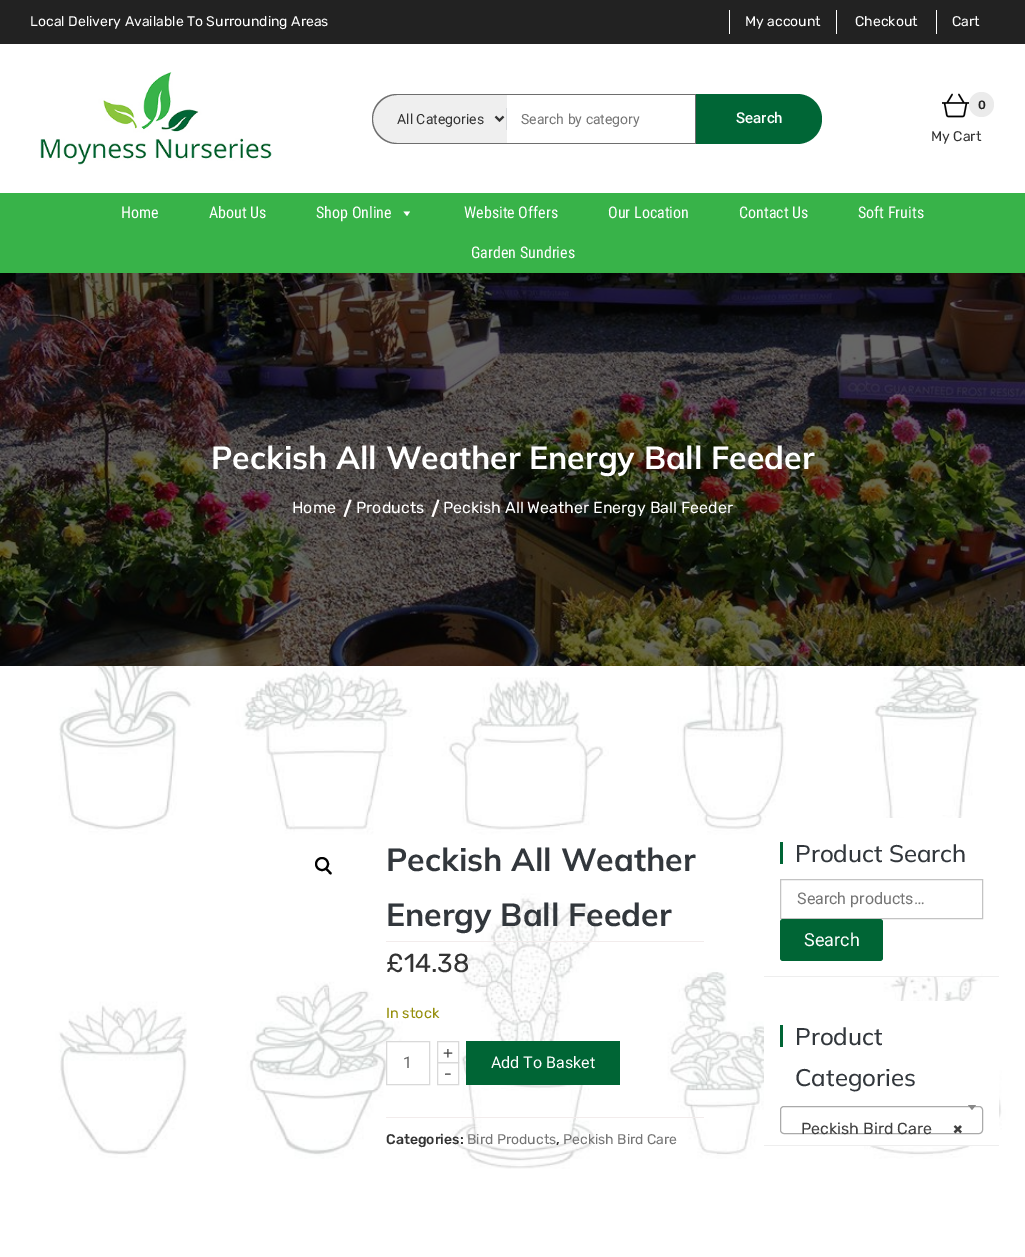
%!PS
<< /PageSize [1025 1257] >> setpagedevice
/m/moveto load def
/l/rlineto load def
/c/rcurveto load def
/z/closepath load def
/f/fill load def
/s/stroke load def
/w/setlinewidth load def
/C { dup -16 bitshift 255 div exch dup -8 bitshift 255 and 255 div exch 255 and 255 div setrgbcolor } def
/F { [ exch dup neg 0 0 3 -1 roll 0 0 ] selectfont } def
/T { moveto show } def
/R { rectfill } def
/O { newpath 0 360 arc closepath } def
/Q { 5 dict begin { /r /h /w /y /x } { exch def } forall
  x r add y moveto x w add y 2 copy h add r arct x w add y h add x 1 index r arct
  x y h add x y r arct x y 2 copy exch w add exch r arct closepath end } def
/I { 5 dict begin { /h /w /y /x /name } { exch def } forall
  gsave x y translate w h scale
  w h 8 [w 0 0 h 0 0] name (r) file false 3 colorimage grestore end } def
0 1257 translate 1 -1 scale
4 setmiterlimit
16#FFFFFF C
0 0 1025 1257 R
(1.rgb) 37 666 984 503 I
16#222222 C
0 0 1025 44 R
/Rubik-Regular 14 F
16#FFFFFF C
(Local Delivery Available To Surrounding Areas) 30 26 T
836 10 1 24 R
729 10 1 24 R
(My account) 745 26 T
(Checkout) 855 26 T
936 10 1 24 R
(Cart) 952 26 T
(2.rgb) 40 72 232 93 I
16#EFEFEF C
397 94 m 110 0 l 0 50 l -110 0 l -14 0 -25 -11 -25 -25 c 0 -14 11 -25 25 -25 c z f
16#6E6E6E C
397 94 m 110 0 l 0 50 l -110 0 l -14 0 -25 -11 -25 -25 c 0 -14 11 -25 25 -25 c z 397 95 m 110 0 l 0 48 l -110 0 l -13 0 -24 -11 -24 -24 c 0 -13 11 -24 24 -24 c z eofill
16#333333 C
2 w
495.5 116.5 m 4 4 l 4 -4 l s
/Roboto-Regular 14 F
(All Categories) 397 124 T
16#D8DADC C
506 108 1 22 R
16#6E6E6E C
507 94 189 1 R
695 94 1 50 R
507 143 189 1 R
16#757575 C
(Search by category) 521 124 T
16#006636 C
696 94 m 101 0 l 14 0 25 11 25 25 c 0 14 -11 25 -25 25 c -101 0 l z f
/Roboto-Medium 15 F
16#FFFFFF C
(Search) 736 123 T
(3.rgb) 942 93 27 25 I
16#EBEBEB C
981.5 104.5 12.5 O f
/Rubik-Medium 12 F
16#222222 C
(0) 978 109 T
/Rubik-Regular 14 F
16#333333 C
(My Cart) 931 141 T
16#38B349 C
0 193 1025 80 R
/RobotoCondensed-Regular 16 F
16#FFFFFF C
(Home) 121 218 T
(About Us) 209 218 T
(Shop Online) 316 218 T
410 211.5 m -3 4.5 l -3.5 -4.5 l z f
(Website Offers) 464 218 T
(Our Location) 608 218 T
(Contact Us) 739 218 T
(Soft Fruits) 858 218 T
(Garden Sundries) 471 258 T
(4.rgb) 0 273 1025 393 I
/Mulish-Bold 32 F
(Peckish All Weather Energy Ball Feeder) 211 469 T
/Rubik-Regular 16 F
(Home) 292 513 T
16#FFFCFC C
349.5 499.5 m 2 .5 l -6 17 l -2 -.5 l z f
16#FFFFFF C
(Products) 356 513 T
16#FFFCFC C
437.5 499.5 m 2 .5 l -6 17 l -2 -.5 l z f
16#FFFFFF C
(Peckish All Weather Energy Ball Feeder) 443 513 T
16#000000 C
322 864 6 O s
325.5 868.5 m 1.5 -1 3 1.5 4 2 c .5 1 3 2.5 2 3.5 c -1.5 1.5 -3 -1.5 -3.5 -2 c -.5 -.5 -3.5 -2.5 -2.5 -3.5 c z f
/Mulish-Bold 32 F
16#32373C C
(Peckish All Weather) 386 871 T
(Energy Ball Feeder) 386 926 T
16#F2ECEC C
386 941 318 1 R
/Rubik-Regular 26 F
16#333333 C
(£14.38) 386 972 T
/Rubik-Regular 14.5 F
16#958E09 C
(In stock) 386 1018 T
16#D9D9D9 C
1 w
437.5 1062.5 21 22 rectstroke
437.5 1041.5 21 21 rectstroke
/Rubik-Regular 16 F
16#404040 C
(+) 443 1058 T
16#FFFFFF C
387 1042 6 38 R
16#D9D9D9 C
386.5 1041.5 43 43 rectstroke
/Roboto-Regular 16 F
16#666666 C
(1) 403 1068 T
/Rubik-Regular 16 F
16#404040 C
(-) 444 1079 T
16#006535 C
466 1041 154 44 R
/Roboto-Regular 16 F
16#FFFFFF C
(Add To Basket) 491 1068 T
16#F2ECEC C
386 1117 318 1 R
/Rubik-Medium 14 F
16#333333 C
(Categories:) 386 1144 T
/Rubik-Regular 14 F
16#757575 C
(Bird Products) 467 1144 T
/Rubik-Medium 14 F
16#333333 C
(,) 556 1144 T
/Rubik-Regular 14 F
16#757575 C
(Peckish Bird Care) 563 1144 T
16#FFFFFF C
764 818 217 158 R
16#EEEEEE C
764 976 235 1 R
16#006535 C
780 842 3 22 R
/Mulish-Medium 24 F
16#32373C C
(Product Search) 795 862 T
16#C3C3C3 C
780.5 879.5 202 39 rectstroke
/Roboto-Regular 16 F
16#757575 C
(Search products…) 797 904 T
16#006535 C
780 919 103 42 3 Q f
/Roboto-Regular 18 F
16#FFFFFF C
(Search) 804 946 T
764 1001 235 144 R
16#EEEEEE C
764 1145 235 1 R
16#006535 C
780 1025 3 22 R
/Mulish-Medium 24 F
16#32373C C
(Product) 795 1045 T
(Categories) 795 1086 T
16#AAAAAA C
780.5 1106.5 202 27 3.5 Q s
16#888888 C
968 1105 m 8 0 l -4 5 l z f
/Rubik-Regular 16 F
16#404040 C
(Peckish Bird Care) 801 1134 T
/Rubik-Bold 16 F
(×) 953 1134 T
showpage
